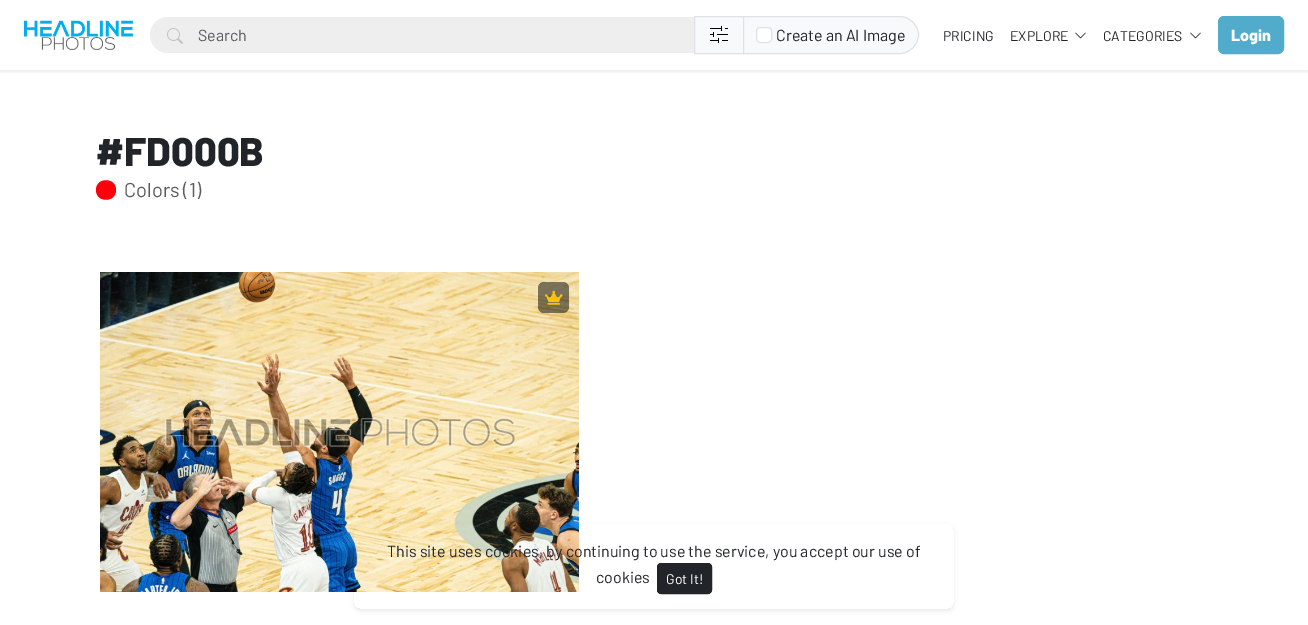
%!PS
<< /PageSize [1308 625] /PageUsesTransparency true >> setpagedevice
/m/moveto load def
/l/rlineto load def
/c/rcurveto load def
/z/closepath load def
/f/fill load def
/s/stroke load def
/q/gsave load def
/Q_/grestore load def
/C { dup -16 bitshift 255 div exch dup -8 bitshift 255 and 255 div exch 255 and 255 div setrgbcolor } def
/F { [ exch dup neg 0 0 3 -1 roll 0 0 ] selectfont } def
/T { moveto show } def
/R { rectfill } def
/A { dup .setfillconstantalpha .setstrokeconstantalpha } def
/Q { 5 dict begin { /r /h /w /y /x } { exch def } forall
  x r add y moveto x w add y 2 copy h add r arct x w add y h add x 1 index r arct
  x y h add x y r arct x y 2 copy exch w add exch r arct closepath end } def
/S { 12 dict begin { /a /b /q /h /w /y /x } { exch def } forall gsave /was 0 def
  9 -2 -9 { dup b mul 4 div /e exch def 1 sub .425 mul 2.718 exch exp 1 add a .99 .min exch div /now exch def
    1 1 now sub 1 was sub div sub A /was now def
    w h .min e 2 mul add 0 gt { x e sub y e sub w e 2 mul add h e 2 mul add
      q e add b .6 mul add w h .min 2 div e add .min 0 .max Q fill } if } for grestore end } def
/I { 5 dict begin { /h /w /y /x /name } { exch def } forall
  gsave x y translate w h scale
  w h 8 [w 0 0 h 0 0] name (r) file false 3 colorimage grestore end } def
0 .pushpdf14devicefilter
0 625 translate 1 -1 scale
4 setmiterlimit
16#FFFFFF C
0 0 1308 625 R
q
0 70 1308 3 rectclip
16#000000 C
0 2 1308 70 0 2 .07 S
Q_
(1.rgb) 24 20 109 30 I
16#EEEEEE C
168 17 m 526 0 l 0 36 l -526 0 l -10 0 -18 -8 -18 -18 c 0 -10 8 -18 18 -18 c z f
(2.rgb) 167 28 16 16 I
/Barlow-Regular 16 F
16#595C5F C
(Search) 198 41 T
16#F8F9FA C
694.5 16.5 m 49 0 l 0 37 l -49 0 l z q f Q_
16#DEE2E6 C
s
(3.rgb) 710 26 18 17 I
16#F8F9FA C
743.5 16.5 m 156.5 0 l 10 0 18.5 8.5 18.5 18.5 c 0 10 -8.5 18.5 -18.5 18.5 c -156.5 0 l z q f Q_
16#DEE2E6 C
s
16#FFFFFF C
756.5 27.5 15 15 3.5 Q q f Q_
16#DEE2E6 C
s
16#212529 C
(Create an AI Image) 776 41 T
/Barlow-Regular 14 F
(PRICING) 943 41 T
(EXPLORE) 1010 41 T
(4.rgb) 1075 32 11 7 I
(CATEGORIES) 1103 41 T
(4.rgb) 1190 32 11 7 I
16#51ACCC C
1218.5 16.5 65 37 5.5 Q q f Q_
s
/Barlow-ExtraBold 16 F
16#FFFFFF C
(Login) 1231 41 T
/Barlow-ExtraBold 40 F
16#212529 C
(#FD000B) 96 166 T
16#FD000B C
96 190 m 0 13 20 13 20 0 c 0 -13 -20 -13 -20 0 c z f
/Barlow-Regular 20 F
16#595C5F C
(Colors \(1\)) 124 197 T
(5.rgb) 100 272 479 320 I
0.5 A
16#000000 C
538 282 31 31 6 Q f
1 A
(6.rgb) 545 290 18 15 I
q
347 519 m 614 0 l 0 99 l -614 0 l z 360 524 m 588 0 l 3.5 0 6 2.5 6 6 c 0 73 l 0 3.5 -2.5 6 -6 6 c -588 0 l -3.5 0 -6 -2.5 -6 -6 c 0 -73 l 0 -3.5 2.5 -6 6 -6 c z eoclip newpath
354 526 600 85 6 2 .07 S
Q_
/Barlow-Regular 16 F
16#212529 C
(This site uses cookies, by continuing to use the service, you accept our use of) 387 557 T
(cookies) 596 583 T
657.5 563.5 54 30 3.5 Q q f Q_
s
/Barlow-Regular 14 F
16#FFFFFF C
(Got It!) 666 584 T
.poppdf14devicefilter showpage
